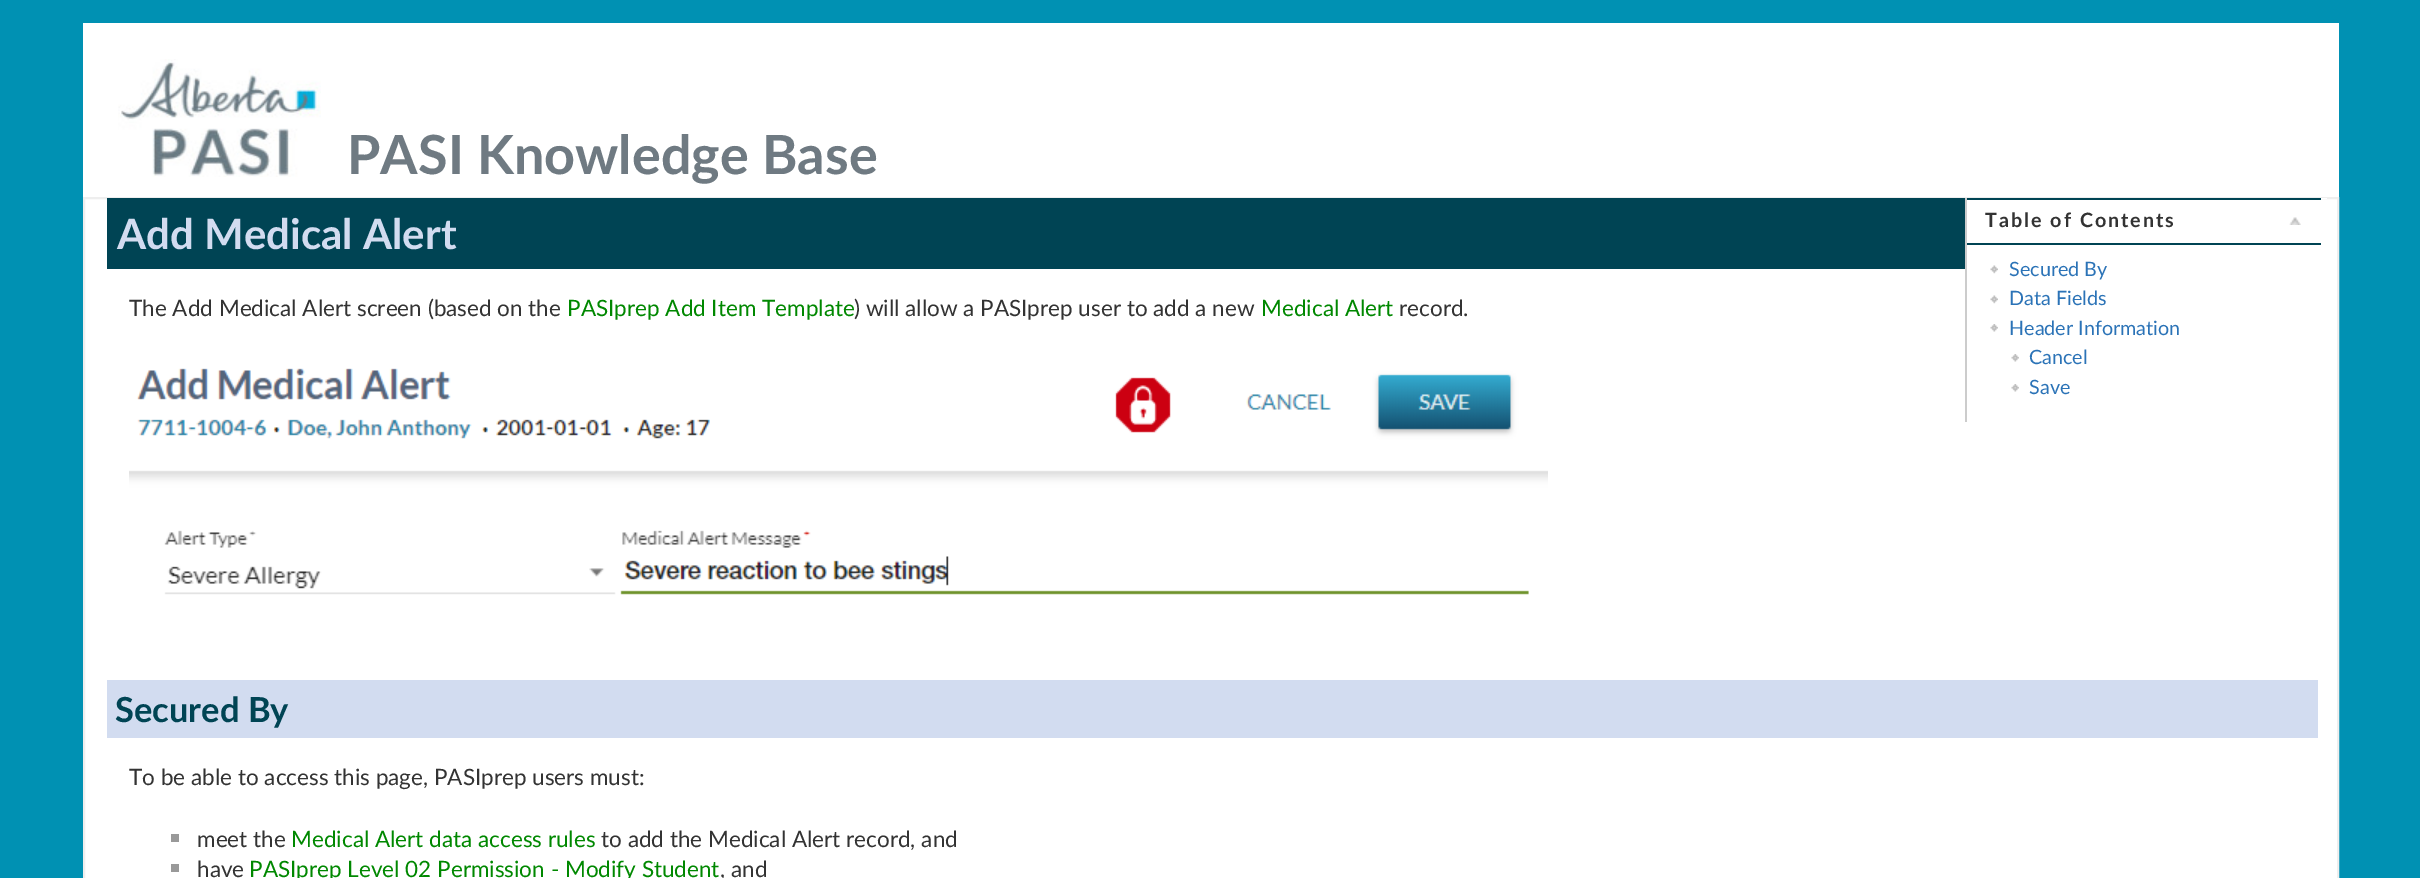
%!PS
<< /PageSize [2420 878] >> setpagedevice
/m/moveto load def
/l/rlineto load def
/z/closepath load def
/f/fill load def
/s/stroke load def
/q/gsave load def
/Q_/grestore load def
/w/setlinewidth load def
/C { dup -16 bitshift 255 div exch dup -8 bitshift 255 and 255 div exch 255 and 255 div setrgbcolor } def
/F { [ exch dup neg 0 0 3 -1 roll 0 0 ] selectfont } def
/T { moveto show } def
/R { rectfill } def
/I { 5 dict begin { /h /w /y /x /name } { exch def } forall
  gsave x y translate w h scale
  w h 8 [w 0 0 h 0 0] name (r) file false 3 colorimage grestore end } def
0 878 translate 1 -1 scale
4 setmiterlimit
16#0091B3 C
0 0 2420 878 R
16#FFFFFF C
83 23 2256 174 R
(1.rgb) 118 59 203 118 I
/Lato-Bold 54 F
16#6F7A82 C
(PASI Knowledge Base) 347 174 T
16#FFFFFF C
84 198 m 2254 0 l 0 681 l -2254 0 l z q f Q_
16#EEEEEE C
2 w
s
16#004454 C
107 198 1858 71 R
/Lato-Bold 42 F
16#D2DCF0 C
(Add Medical Alert) 117 249 T
16#FFFFFF C
1967 198 360 1 R
16#CCCCCC C
1965 198 2 224 R
16#004454 C
1967 198 354 2 R
1967 243 354 2 R
/Lato-Bold 19.75 F
16#333333 C
1985 227 m 2 0 (Table of Contents) ashow
(2.rgb) 2289 217 12 8 I
(3.rgb) 1990 265 8 9 I
/Lato-Regular 19.75 F
16#2B73B7 C
(Secured By) 2009 276 T
(3.rgb) 1990 295 8 9 I
(Data Fields) 2009 305 T
(4.rgb) 1990 324 8 8 I
(Header Information) 2009 335 T
(4.rgb) 2011 354 8 8 I
(Cancel) 2029 364 T
(4.rgb) 2011 384 8 8 I
(Save) 2029 394 T
/Lato-Regular 22.5 F
16#333333 C
(The Add Medical Alert screen \(based on the) 129 316 T
16#008800 C
(PASIprep Add Item Template) 567 316 T
16#333333 C
(\) will allow a PASIprep user to add a new) 854 316 T
16#008800 C
(Medical Alert) 1261 316 T
16#333333 C
(record.) 1399 316 T
(5.rgb) 129 368 1419 227 I
16#D2DCF0 C
107 680 2211 58 R
/Lato-Bold 34.5 F
16#004454 C
(Secured By) 115 722 T
/Lato-Regular 22.5 F
16#333333 C
(To be able to access this page, PASIprep users must:) 129 785 T
16#999999 C
171 834 8 8 R
16#333333 C
(meet the) 197 847 T
16#008800 C
(Medical Alert data access rules) 291 847 T
16#333333 C
(to add the Medical Alert record, and) 601 847 T
16#999999 C
171 864 8 8 R
16#333333 C
(have) 197 877 T
16#008800 C
(PASIprep Level 02 Permission - Modify Student) 249 877 T
16#333333 C
(, and) 720 877 T
showpage
